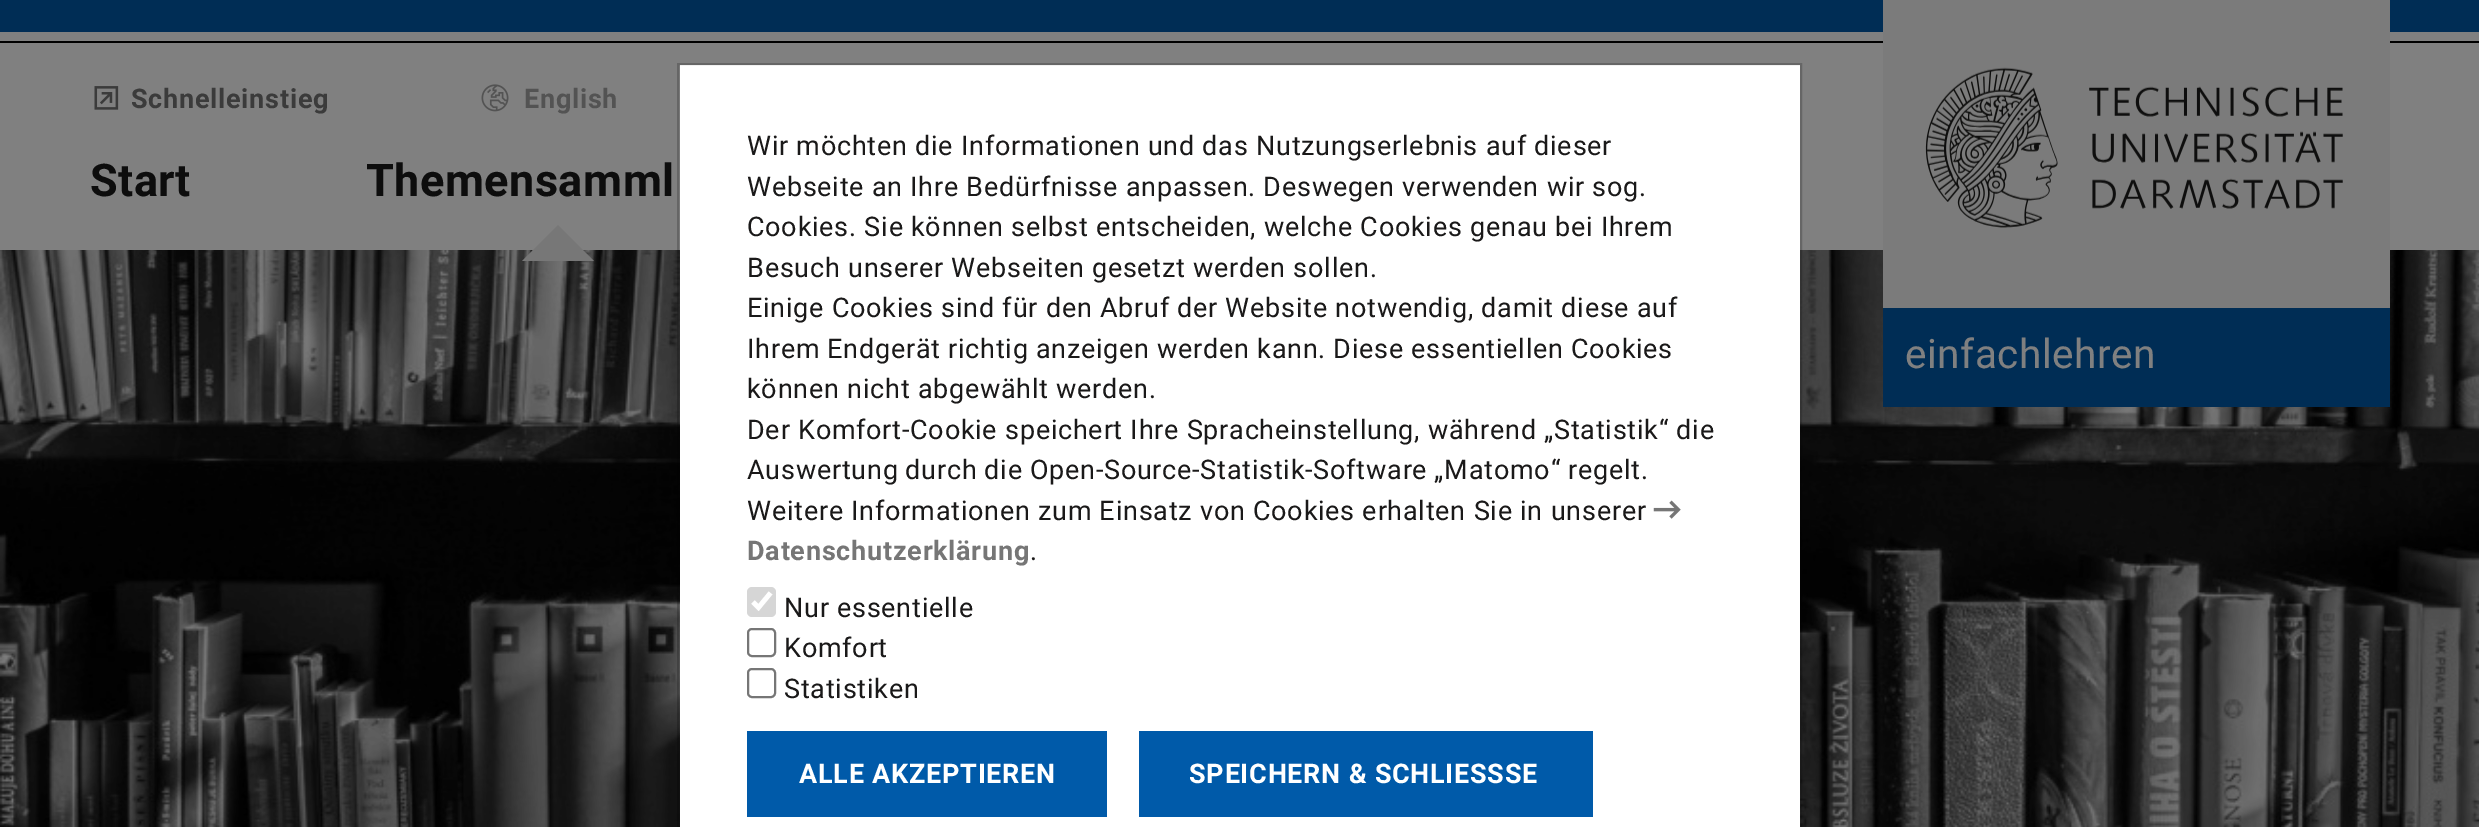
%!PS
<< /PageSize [2479 827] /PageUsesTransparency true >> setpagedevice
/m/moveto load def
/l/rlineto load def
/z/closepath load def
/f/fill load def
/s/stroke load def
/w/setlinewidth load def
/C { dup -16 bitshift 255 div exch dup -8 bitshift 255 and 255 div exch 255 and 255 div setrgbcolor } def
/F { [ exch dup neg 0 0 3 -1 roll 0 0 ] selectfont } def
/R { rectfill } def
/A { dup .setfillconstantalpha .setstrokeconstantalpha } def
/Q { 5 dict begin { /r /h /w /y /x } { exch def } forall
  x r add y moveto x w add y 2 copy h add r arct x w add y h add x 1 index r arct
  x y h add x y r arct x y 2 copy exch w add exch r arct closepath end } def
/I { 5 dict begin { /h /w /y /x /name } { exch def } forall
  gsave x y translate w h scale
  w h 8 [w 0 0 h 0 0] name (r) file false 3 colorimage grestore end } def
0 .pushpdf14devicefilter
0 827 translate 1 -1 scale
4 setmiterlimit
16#808080 C
0 0 2479 827 R
16#002D55 C
0 0 2479 32 R
16#000000 C
0 41 2479 2 R
(1.rgb) 94 86 25 24 I
/Roboto-Bold 27 F
16#3B3B3B C
131 108 m .75 0 (Schnelleinstieg) ashow
(2.rgb) 481 84 28 28 I
16#535353 C
524 108 m .75 0 (English) ashow
/Roboto-Bold 45 F
16#0D0D0D C
90 196 m .5 0 (Start) ashow
366 196 m .5 0 (Themensamml) ashow
(4.rgb) 0 250 2479 577 I
16#777777 C
594 261 m -72 0 l 36 -36 l z f
16#7B7B7B C
1883 0 507 308 R
(3.rgb) 1925 67 418 161 I
16#002D55 C
1883 308 507 99 R
/Roboto-Regular 40.5 F
16#808080 C
1905 368 m .5 0 (einfachlehren) ashow
16#FFFFFF C
680 65 1120 762 R
0.2 A
16#000000 C
2 w
678 64 1123 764 rectstroke
/Roboto-Regular 27 F
1 A
16#1A1919 C
747 155 m .75 0 (Wir möchten die Informationen und das Nutzungserlebnis auf dieser) ashow
747 196 m .75 0 (Webseite an Ihre Bedürfnisse anpassen. Deswegen verwenden wir sog.) ashow
747 236 m .75 0 (Cookies. Sie können selbst entscheiden, welche Cookies genau bei Ihrem) ashow
747 277 m .75 0 (Besuch unserer Webseiten gesetzt werden sollen.) ashow
747 317 m .75 0 (Einige Cookies sind für den Abruf der Website notwendig, damit diese auf) ashow
747 358 m -.25 0 32 .75 0 (Ihrem Endgerät richtig anzeigen werden kann. Diese essentiellen Cookies) awidthshow
747 398 m .75 0 (können nicht abgewählt werden.) ashow
747 439 m .75 0 (Der Komfort-Cookie speichert Ihre Spracheinstellung, während „Statistik“ die) ashow
747 479 m -.5 0 32 .75 0 (Auswertung durch die Open-Source-Statistik-Software „Matomo“ regelt.) awidthshow
747 520 m .75 0 (Weitere Informationen zum Einsatz von Cookies erhalten Sie in unserer) ashow
(5.rgb) 1653 500 28 19 I
/Roboto-Bold 27 F
16#767676 C
747 560 m .75 0 (Datenschutzerklärung) ashow
/Roboto-Regular 27 F
16#1A1919 C
1030 560 m .75 0 (.) ashow
16#D6D6D6 C
747 587 29 30 5 Q f
16#FFFFFF C
4.7 w
753 602 m 5.5 5.5 l 12 -14.5 l s
16#1A1919 C
784 617 m .75 0 (Nur essentielle) ashow
16#767676 C
2 w
748 629 27 27 4 Q s
16#1A1919 C
784 657 m .75 0 (Komfort) ashow
16#767676 C
748 669 27 28 4 Q s
16#1A1919 C
784 698 m .75 0 (Statistiken) ashow
16#005AA9 C
747 731 360 86 R
/Roboto-Bold 27 F
16#FFFFFF C
799 783 m .75 0 (ALLE AKZEPTIEREN) ashow
16#005AA9 C
1139 731 454 86 R
16#FFFFFF C
1189 783 m .75 0 (SPEICHERN & SCHLIESSSE) ashow
.poppdf14devicefilter showpage
